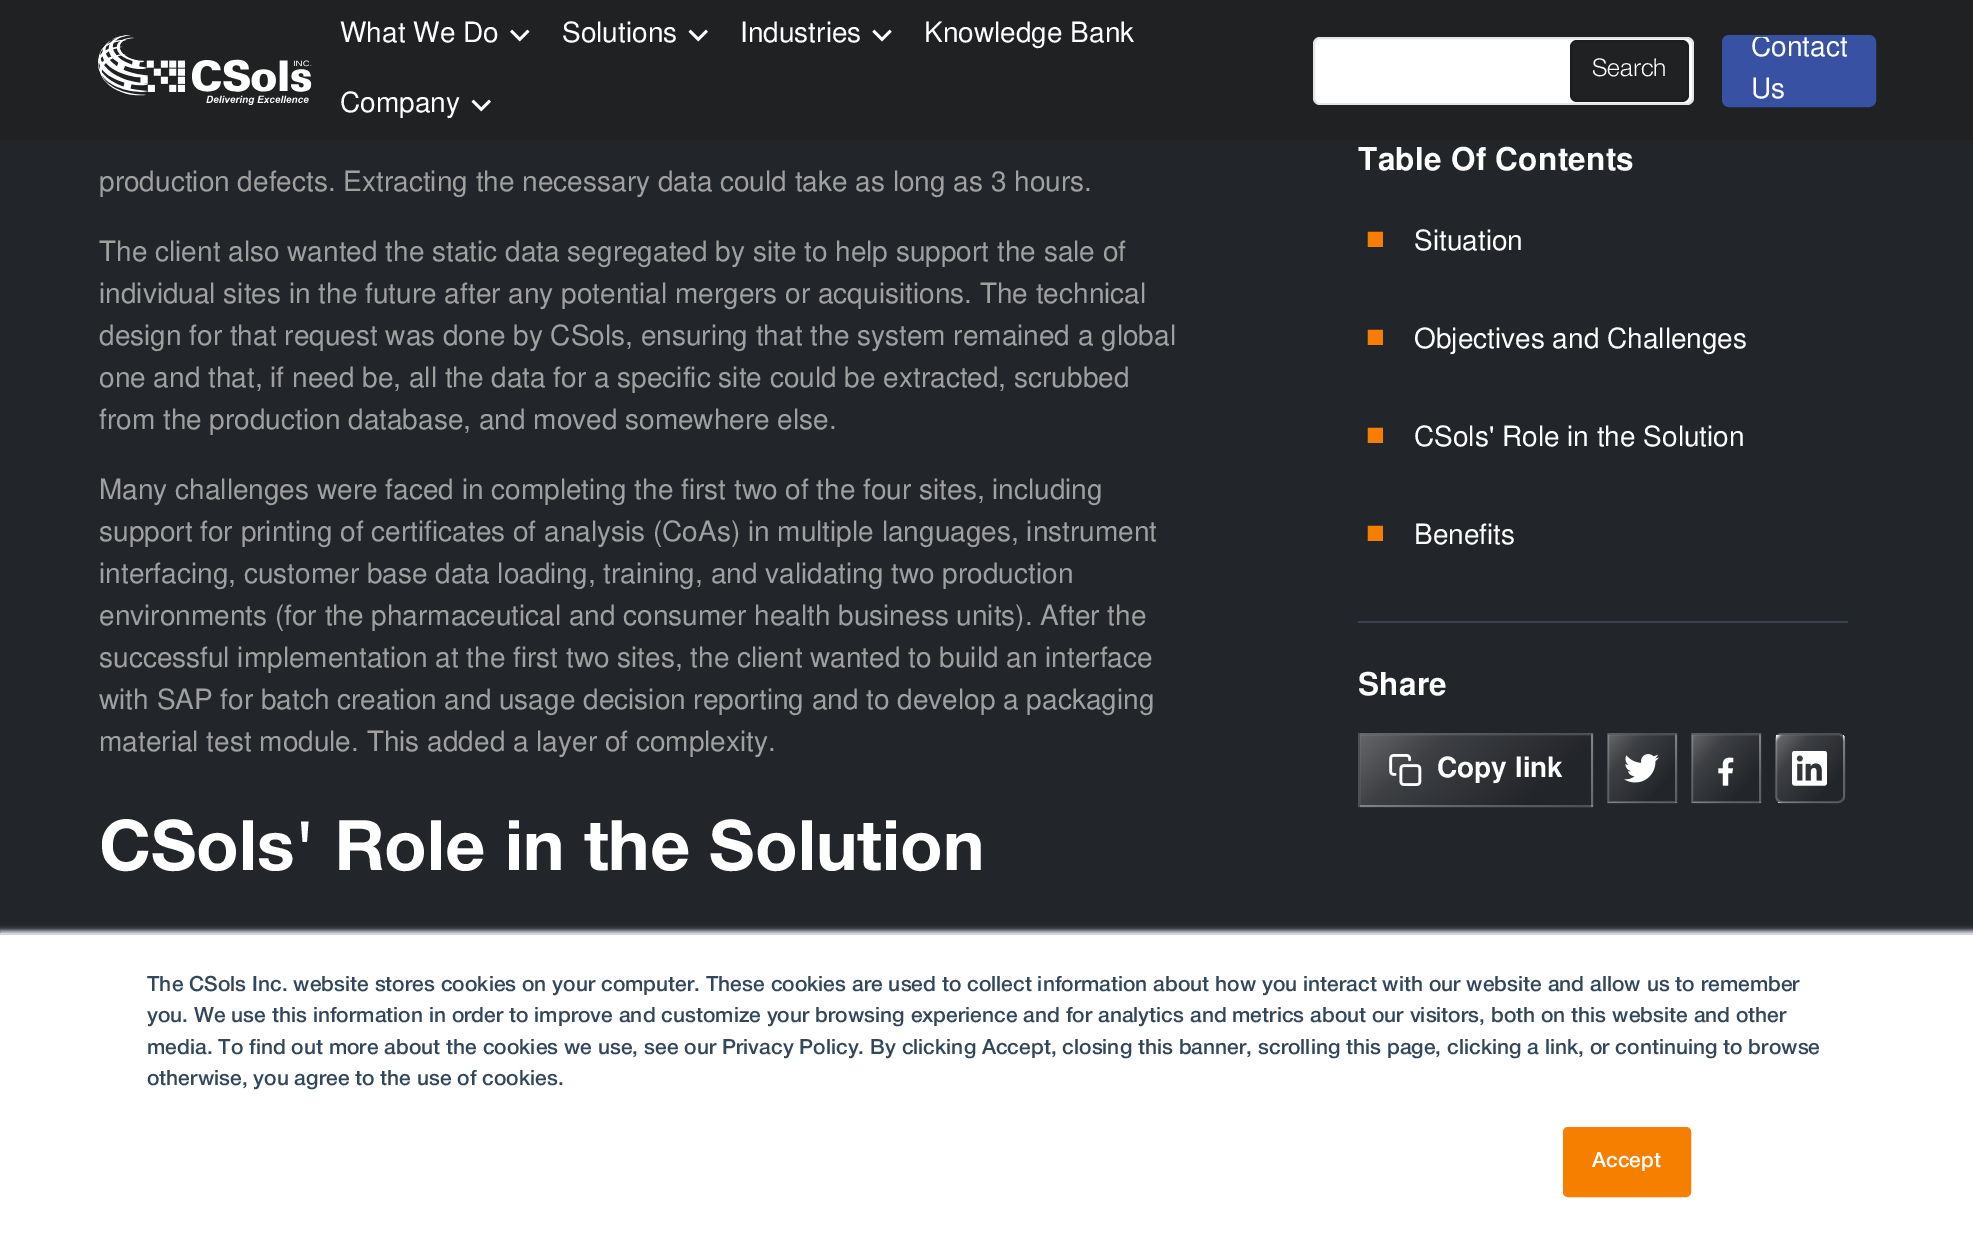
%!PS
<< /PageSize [1973 1241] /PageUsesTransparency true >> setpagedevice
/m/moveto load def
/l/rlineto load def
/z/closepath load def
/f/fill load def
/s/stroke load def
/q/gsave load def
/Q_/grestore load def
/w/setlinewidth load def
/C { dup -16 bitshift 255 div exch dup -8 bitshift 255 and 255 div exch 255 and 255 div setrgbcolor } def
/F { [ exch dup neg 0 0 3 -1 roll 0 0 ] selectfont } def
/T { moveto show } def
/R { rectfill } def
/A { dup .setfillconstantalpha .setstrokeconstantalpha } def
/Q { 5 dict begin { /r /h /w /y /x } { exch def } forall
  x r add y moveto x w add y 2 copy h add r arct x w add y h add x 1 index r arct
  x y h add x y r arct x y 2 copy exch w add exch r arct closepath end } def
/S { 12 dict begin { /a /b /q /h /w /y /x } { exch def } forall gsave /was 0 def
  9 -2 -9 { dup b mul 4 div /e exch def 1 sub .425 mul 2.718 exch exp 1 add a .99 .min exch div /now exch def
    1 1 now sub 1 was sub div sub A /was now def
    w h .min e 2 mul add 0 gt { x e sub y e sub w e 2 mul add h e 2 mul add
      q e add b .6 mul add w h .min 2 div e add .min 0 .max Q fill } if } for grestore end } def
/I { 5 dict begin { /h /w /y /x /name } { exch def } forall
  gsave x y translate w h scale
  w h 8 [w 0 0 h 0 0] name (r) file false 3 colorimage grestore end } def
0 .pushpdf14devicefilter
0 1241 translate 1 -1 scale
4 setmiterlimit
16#222529 C
0 0 1973 1241 R
16#1F2123 C
0 0 1973 140 R
(1.rgb) 98 35 214 70 I
/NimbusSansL-Regular 28 F
16#FFFFFF C
(What We Do) 340 42 T
(2.rgb) 510 29 20 13 I
(Solutions) 562 42 T
(3.rgb) 688 29 20 13 I
(Industries) 740 42 T
(4.rgb) 872 29 20 13 I
(Knowledge Bank) 924 42 T
(Company) 340 112 T
(3.rgb) 471 99 20 13 I
1313 37 381 68 7 Q f
0.1 A
16#000000 C
2 w
1314 38 379 66 6 Q s
1 A
16#1F2123 C
1570 40 119 62 7 Q f
0.12 A
16#000000 C
1571 41 117 60 6 Q s
/HelveticaNeue-Light 24.5 F
1 A
16#FFFFFF C
(Search) 1592 76 T
16#3851A3 C
1723 36 152 70 6 Q q f Q_
s
q
1724 37 150 68 5 Q clip newpath
/NimbusSansL-Regular 28 F
16#FFFFFF C
(Contact) 1751 56 T
Q_
/NimbusSansL-Regular 28 F
16#FFFFFF C
(Us) 1751 98 T
16#A0A0A0 C
(production defects. Extracting the necessary data could take as long as 3 hours.) 99 191 T
(The client also wanted the static data segregated by site to help support the sale of) 99 261 T
(individual sites in the future after any potential mergers or acquisitions. The technical) 99 303 T
(design for that request was done by CSols, ensuring that the system remained a global) 99 345 T
(one and that, if need be, all the data for a specific site could be extracted, scrubbed) 99 387 T
(from the production database, and moved somewhere else.) 99 429 T
(Many challenges were faced in completing the first two of the four sites, including) 99 499 T
(support for printing of certificates of analysis \(CoAs\) in multiple languages, instrument) 99 541 T
(interfacing, customer base data loading, training, and validating two production) 99 583 T
(environments \(for the pharmaceutical and consumer health business units\). After the) 99 625 T
(successful implementation at the first two sites, the client wanted to build an interface) 99 667 T
(with SAP for batch creation and usage decision reporting and to develop a packaging) 99 709 T
(material test module. This added a layer of complexity.) 99 751 T
/HelveticaNeue-Bold 70 F
16#FFFFFF C
(CSols' Role in the Solution) 99 870 T
/NimbusSansL-Bold 31.5 F
1358 170 m .3 0 (Table Of Contents) ashow
/NimbusSansL-Regular 21 F
16#F77F00 C
1369 247 m 2 0 (■) ashow
/NimbusSansL-Regular 28 F
16#FFFFFF C
(Situation) 1414 250 T
/NimbusSansL-Regular 21 F
16#F77F00 C
1369 345 m 2 0 (■) ashow
/NimbusSansL-Regular 28 F
16#FFFFFF C
(Objectives and Challenges) 1414 348 T
/NimbusSansL-Regular 21 F
16#F77F00 C
1369 443 m 2 0 (■) ashow
/NimbusSansL-Regular 28 F
16#FFFFFF C
(CSols' Role in the Solution) 1414 446 T
/NimbusSansL-Regular 21 F
16#F77F00 C
1369 541 m 2 0 (■) ashow
/NimbusSansL-Regular 28 F
16#FFFFFF C
(Benefits) 1414 544 T
16#3C414E C
1358 621 490 2 R
/NimbusSansL-Bold 31.5 F
16#FFFFFF C
1358 695 m .3 0 (Share) ashow
q 1360 733 m 156 0 l 0 2 l -156 0 l z clip newpath
<< /ShadingType 2 /ColorSpace /DeviceRGB /Coords [1406 623 1544 777] /Extend [true true] /Function << /FunctionType 3 /Domain [0 1] /Functions [<< /FunctionType 2 /Domain [0 1] /C0 [.392 .4 .412] /C1 [.239 .247 .263] /N 1 >> << /FunctionType 2 /Domain [0 1] /C0 [.239 .247 .263] /C1 [.133 .145 .161] /N 1 >> << /FunctionType 2 /Domain [0 1] /C0 [.133 .145 .161] /C1 [.133 .145 .161] /N 1 >>] /Bounds [.29 .8] /Encode [0 1 0 1 0 1] >> >> shfill Q_
q 1591 733 m 2 0 l 0 2 l -2 0 l z clip newpath
<< /ShadingType 2 /ColorSpace /DeviceRGB /Coords [1637 623 1775 777] /Extend [true true] /Function << /FunctionType 3 /Domain [0 1] /Functions [<< /FunctionType 2 /Domain [0 1] /C0 [.392 .4 .412] /C1 [.239 .247 .263] /N 1 >> << /FunctionType 2 /Domain [0 1] /C0 [.239 .247 .263] /C1 [.133 .145 .161] /N 1 >> << /FunctionType 2 /Domain [0 1] /C0 [.133 .145 .161] /C1 [.133 .145 .161] /N 1 >>] /Bounds [.29 .8] /Encode [0 1 0 1 0 1] >> >> shfill Q_
q 1358 735 m 2 0 l 0 3 l -2 0 l z clip newpath
<< /ShadingType 2 /ColorSpace /DeviceRGB /Coords [1175 693 1313 847] /Extend [true true] /Function << /FunctionType 3 /Domain [0 1] /Functions [<< /FunctionType 2 /Domain [0 1] /C0 [.392 .4 .412] /C1 [.239 .247 .263] /N 1 >> << /FunctionType 2 /Domain [0 1] /C0 [.239 .247 .263] /C1 [.133 .145 .161] /N 1 >> << /FunctionType 2 /Domain [0 1] /C0 [.133 .145 .161] /C1 [.133 .145 .161] /N 1 >>] /Bounds [.29 .8] /Encode [0 1 0 1 0 1] >> >> shfill Q_
q 1360 735 m 231 0 l 0 70 l -231 0 l z clip newpath
<< /ShadingType 2 /ColorSpace /DeviceRGB /Coords [1406 693 1544 847] /Extend [true true] /Function << /FunctionType 3 /Domain [0 1] /Functions [<< /FunctionType 2 /Domain [0 1] /C0 [.392 .4 .412] /C1 [.239 .247 .263] /N 1 >> << /FunctionType 2 /Domain [0 1] /C0 [.239 .247 .263] /C1 [.133 .145 .161] /N 1 >> << /FunctionType 2 /Domain [0 1] /C0 [.133 .145 .161] /C1 [.133 .145 .161] /N 1 >>] /Bounds [.29 .8] /Encode [0 1 0 1 0 1] >> >> shfill Q_
q 1591 735 m 2 0 l 0 70 l -2 0 l z clip newpath
<< /ShadingType 2 /ColorSpace /DeviceRGB /Coords [1637 693 1775 847] /Extend [true true] /Function << /FunctionType 3 /Domain [0 1] /Functions [<< /FunctionType 2 /Domain [0 1] /C0 [.392 .4 .412] /C1 [.239 .247 .263] /N 1 >> << /FunctionType 2 /Domain [0 1] /C0 [.239 .247 .263] /C1 [.133 .145 .161] /N 1 >> << /FunctionType 2 /Domain [0 1] /C0 [.133 .145 .161] /C1 [.133 .145 .161] /N 1 >>] /Bounds [.29 .8] /Encode [0 1 0 1 0 1] >> >> shfill Q_
q 1358 805 m 2 0 l 0 2 l -2 0 l z clip newpath
<< /ShadingType 2 /ColorSpace /DeviceRGB /Coords [1175 763 1313 917] /Extend [true true] /Function << /FunctionType 3 /Domain [0 1] /Functions [<< /FunctionType 2 /Domain [0 1] /C0 [.392 .4 .412] /C1 [.239 .247 .263] /N 1 >> << /FunctionType 2 /Domain [0 1] /C0 [.239 .247 .263] /C1 [.133 .145 .161] /N 1 >> << /FunctionType 2 /Domain [0 1] /C0 [.133 .145 .161] /C1 [.133 .145 .161] /N 1 >>] /Bounds [.29 .8] /Encode [0 1 0 1 0 1] >> >> shfill Q_
q 1360 805 m 231 0 l 0 2 l -231 0 l z clip newpath
<< /ShadingType 2 /ColorSpace /DeviceRGB /Coords [1406 763 1544 917] /Extend [true true] /Function << /FunctionType 3 /Domain [0 1] /Functions [<< /FunctionType 2 /Domain [0 1] /C0 [.392 .4 .412] /C1 [.239 .247 .263] /N 1 >> << /FunctionType 2 /Domain [0 1] /C0 [.239 .247 .263] /C1 [.133 .145 .161] /N 1 >> << /FunctionType 2 /Domain [0 1] /C0 [.133 .145 .161] /C1 [.133 .145 .161] /N 1 >>] /Bounds [.29 .8] /Encode [0 1 0 1 0 1] >> >> shfill Q_
q 1591 805 m 2 0 l 0 2 l -2 0 l z clip newpath
<< /ShadingType 2 /ColorSpace /DeviceRGB /Coords [1637 763 1775 917] /Extend [true true] /Function << /FunctionType 3 /Domain [0 1] /Functions [<< /FunctionType 2 /Domain [0 1] /C0 [.392 .4 .412] /C1 [.239 .247 .263] /N 1 >> << /FunctionType 2 /Domain [0 1] /C0 [.239 .247 .263] /C1 [.133 .145 .161] /N 1 >> << /FunctionType 2 /Domain [0 1] /C0 [.133 .145 .161] /C1 [.133 .145 .161] /N 1 >>] /Bounds [.29 .8] /Encode [0 1 0 1 0 1] >> >> shfill Q_
0.2 A
1359 734 233 72 rectstroke
1 A
(5.rgb) 1389 754 33 32 I
/NimbusSansL-Bold 28 F
(Copy link) 1437 777 T
q 1608 733 m 38 0 l 0 2 l -38 0 l z clip newpath
<< /ShadingType 2 /ColorSpace /DeviceRGB /Coords [1606 672 1677 732] /Extend [true true] /Function << /FunctionType 3 /Domain [0 1] /Functions [<< /FunctionType 2 /Domain [0 1] /C0 [.392 .4 .412] /C1 [.239 .247 .263] /N 1 >> << /FunctionType 2 /Domain [0 1] /C0 [.239 .247 .263] /C1 [.133 .145 .161] /N 1 >> << /FunctionType 2 /Domain [0 1] /C0 [.133 .145 .161] /C1 [.133 .145 .161] /N 1 >>] /Bounds [.29 .8] /Encode [0 1 0 1 0 1] >> >> shfill Q_
q 1675 733 m 2 0 l 0 2 l -2 0 l z clip newpath
<< /ShadingType 2 /ColorSpace /DeviceRGB /Coords [1672 672 1744 732] /Extend [true true] /Function << /FunctionType 3 /Domain [0 1] /Functions [<< /FunctionType 2 /Domain [0 1] /C0 [.392 .4 .412] /C1 [.239 .247 .263] /N 1 >> << /FunctionType 2 /Domain [0 1] /C0 [.239 .247 .263] /C1 [.133 .145 .161] /N 1 >> << /FunctionType 2 /Domain [0 1] /C0 [.133 .145 .161] /C1 [.133 .145 .161] /N 1 >>] /Bounds [.29 .8] /Encode [0 1 0 1 0 1] >> >> shfill Q_
q 1607 735 m 1 0 l 0 31 l -1 0 l z clip newpath
<< /ShadingType 2 /ColorSpace /DeviceRGB /Coords [1539 738 1611 798] /Extend [true true] /Function << /FunctionType 3 /Domain [0 1] /Functions [<< /FunctionType 2 /Domain [0 1] /C0 [.392 .4 .412] /C1 [.239 .247 .263] /N 1 >> << /FunctionType 2 /Domain [0 1] /C0 [.239 .247 .263] /C1 [.133 .145 .161] /N 1 >> << /FunctionType 2 /Domain [0 1] /C0 [.133 .145 .161] /C1 [.133 .145 .161] /N 1 >>] /Bounds [.29 .8] /Encode [0 1 0 1 0 1] >> >> shfill Q_
q 1608 735 m 67 0 l 0 67 l -67 0 l z clip newpath
<< /ShadingType 2 /ColorSpace /DeviceRGB /Coords [1606 738 1677 798] /Extend [true true] /Function << /FunctionType 3 /Domain [0 1] /Functions [<< /FunctionType 2 /Domain [0 1] /C0 [.392 .4 .412] /C1 [.239 .247 .263] /N 1 >> << /FunctionType 2 /Domain [0 1] /C0 [.239 .247 .263] /C1 [.133 .145 .161] /N 1 >> << /FunctionType 2 /Domain [0 1] /C0 [.133 .145 .161] /C1 [.133 .145 .161] /N 1 >>] /Bounds [.29 .8] /Encode [0 1 0 1 0 1] >> >> shfill Q_
q 1675 735 m 2 0 l 0 67 l -2 0 l z clip newpath
<< /ShadingType 2 /ColorSpace /DeviceRGB /Coords [1672 738 1744 798] /Extend [true true] /Function << /FunctionType 3 /Domain [0 1] /Functions [<< /FunctionType 2 /Domain [0 1] /C0 [.392 .4 .412] /C1 [.239 .247 .263] /N 1 >> << /FunctionType 2 /Domain [0 1] /C0 [.239 .247 .263] /C1 [.133 .145 .161] /N 1 >> << /FunctionType 2 /Domain [0 1] /C0 [.133 .145 .161] /C1 [.133 .145 .161] /N 1 >>] /Bounds [.29 .8] /Encode [0 1 0 1 0 1] >> >> shfill Q_
q 1607 802 m 1 0 l 0 1 l -1 0 l z clip newpath
<< /ShadingType 2 /ColorSpace /DeviceRGB /Coords [1539 805 1611 865] /Extend [true true] /Function << /FunctionType 3 /Domain [0 1] /Functions [<< /FunctionType 2 /Domain [0 1] /C0 [.392 .4 .412] /C1 [.239 .247 .263] /N 1 >> << /FunctionType 2 /Domain [0 1] /C0 [.239 .247 .263] /C1 [.133 .145 .161] /N 1 >> << /FunctionType 2 /Domain [0 1] /C0 [.133 .145 .161] /C1 [.133 .145 .161] /N 1 >>] /Bounds [.29 .8] /Encode [0 1 0 1 0 1] >> >> shfill Q_
q 1608 802 m 67 0 l 0 1 l -67 0 l z clip newpath
<< /ShadingType 2 /ColorSpace /DeviceRGB /Coords [1606 805 1677 865] /Extend [true true] /Function << /FunctionType 3 /Domain [0 1] /Functions [<< /FunctionType 2 /Domain [0 1] /C0 [.392 .4 .412] /C1 [.239 .247 .263] /N 1 >> << /FunctionType 2 /Domain [0 1] /C0 [.239 .247 .263] /C1 [.133 .145 .161] /N 1 >> << /FunctionType 2 /Domain [0 1] /C0 [.133 .145 .161] /C1 [.133 .145 .161] /N 1 >>] /Bounds [.29 .8] /Encode [0 1 0 1 0 1] >> >> shfill Q_
q 1675 802 m 2 0 l 0 1 l -2 0 l z clip newpath
<< /ShadingType 2 /ColorSpace /DeviceRGB /Coords [1672 805 1744 865] /Extend [true true] /Function << /FunctionType 3 /Domain [0 1] /Functions [<< /FunctionType 2 /Domain [0 1] /C0 [.392 .4 .412] /C1 [.239 .247 .263] /N 1 >> << /FunctionType 2 /Domain [0 1] /C0 [.239 .247 .263] /C1 [.133 .145 .161] /N 1 >> << /FunctionType 2 /Domain [0 1] /C0 [.133 .145 .161] /C1 [.133 .145 .161] /N 1 >>] /Bounds [.29 .8] /Encode [0 1 0 1 0 1] >> >> shfill Q_
0.2 A
1608 734 68 68 rectstroke
1 A
(6.rgb) 1624 754 35 29 I
q 1692 733 m 38 0 l 0 2 l -38 0 l z clip newpath
<< /ShadingType 2 /ColorSpace /DeviceRGB /Coords [1690 672 1761 732] /Extend [true true] /Function << /FunctionType 3 /Domain [0 1] /Functions [<< /FunctionType 2 /Domain [0 1] /C0 [.392 .4 .412] /C1 [.239 .247 .263] /N 1 >> << /FunctionType 2 /Domain [0 1] /C0 [.239 .247 .263] /C1 [.133 .145 .161] /N 1 >> << /FunctionType 2 /Domain [0 1] /C0 [.133 .145 .161] /C1 [.133 .145 .161] /N 1 >>] /Bounds [.29 .8] /Encode [0 1 0 1 0 1] >> >> shfill Q_
q 1759 733 m 2 0 l 0 2 l -2 0 l z clip newpath
<< /ShadingType 2 /ColorSpace /DeviceRGB /Coords [1756 672 1828 732] /Extend [true true] /Function << /FunctionType 3 /Domain [0 1] /Functions [<< /FunctionType 2 /Domain [0 1] /C0 [.392 .4 .412] /C1 [.239 .247 .263] /N 1 >> << /FunctionType 2 /Domain [0 1] /C0 [.239 .247 .263] /C1 [.133 .145 .161] /N 1 >> << /FunctionType 2 /Domain [0 1] /C0 [.133 .145 .161] /C1 [.133 .145 .161] /N 1 >>] /Bounds [.29 .8] /Encode [0 1 0 1 0 1] >> >> shfill Q_
q 1691 735 m 1 0 l 0 31 l -1 0 l z clip newpath
<< /ShadingType 2 /ColorSpace /DeviceRGB /Coords [1623 738 1695 798] /Extend [true true] /Function << /FunctionType 3 /Domain [0 1] /Functions [<< /FunctionType 2 /Domain [0 1] /C0 [.392 .4 .412] /C1 [.239 .247 .263] /N 1 >> << /FunctionType 2 /Domain [0 1] /C0 [.239 .247 .263] /C1 [.133 .145 .161] /N 1 >> << /FunctionType 2 /Domain [0 1] /C0 [.133 .145 .161] /C1 [.133 .145 .161] /N 1 >>] /Bounds [.29 .8] /Encode [0 1 0 1 0 1] >> >> shfill Q_
q 1692 735 m 67 0 l 0 67 l -67 0 l z clip newpath
<< /ShadingType 2 /ColorSpace /DeviceRGB /Coords [1690 738 1761 798] /Extend [true true] /Function << /FunctionType 3 /Domain [0 1] /Functions [<< /FunctionType 2 /Domain [0 1] /C0 [.392 .4 .412] /C1 [.239 .247 .263] /N 1 >> << /FunctionType 2 /Domain [0 1] /C0 [.239 .247 .263] /C1 [.133 .145 .161] /N 1 >> << /FunctionType 2 /Domain [0 1] /C0 [.133 .145 .161] /C1 [.133 .145 .161] /N 1 >>] /Bounds [.29 .8] /Encode [0 1 0 1 0 1] >> >> shfill Q_
q 1759 735 m 2 0 l 0 67 l -2 0 l z clip newpath
<< /ShadingType 2 /ColorSpace /DeviceRGB /Coords [1756 738 1828 798] /Extend [true true] /Function << /FunctionType 3 /Domain [0 1] /Functions [<< /FunctionType 2 /Domain [0 1] /C0 [.392 .4 .412] /C1 [.239 .247 .263] /N 1 >> << /FunctionType 2 /Domain [0 1] /C0 [.239 .247 .263] /C1 [.133 .145 .161] /N 1 >> << /FunctionType 2 /Domain [0 1] /C0 [.133 .145 .161] /C1 [.133 .145 .161] /N 1 >>] /Bounds [.29 .8] /Encode [0 1 0 1 0 1] >> >> shfill Q_
q 1691 802 m 1 0 l 0 1 l -1 0 l z clip newpath
<< /ShadingType 2 /ColorSpace /DeviceRGB /Coords [1623 805 1695 865] /Extend [true true] /Function << /FunctionType 3 /Domain [0 1] /Functions [<< /FunctionType 2 /Domain [0 1] /C0 [.392 .4 .412] /C1 [.239 .247 .263] /N 1 >> << /FunctionType 2 /Domain [0 1] /C0 [.239 .247 .263] /C1 [.133 .145 .161] /N 1 >> << /FunctionType 2 /Domain [0 1] /C0 [.133 .145 .161] /C1 [.133 .145 .161] /N 1 >>] /Bounds [.29 .8] /Encode [0 1 0 1 0 1] >> >> shfill Q_
q 1692 802 m 67 0 l 0 1 l -67 0 l z clip newpath
<< /ShadingType 2 /ColorSpace /DeviceRGB /Coords [1690 805 1761 865] /Extend [true true] /Function << /FunctionType 3 /Domain [0 1] /Functions [<< /FunctionType 2 /Domain [0 1] /C0 [.392 .4 .412] /C1 [.239 .247 .263] /N 1 >> << /FunctionType 2 /Domain [0 1] /C0 [.239 .247 .263] /C1 [.133 .145 .161] /N 1 >> << /FunctionType 2 /Domain [0 1] /C0 [.133 .145 .161] /C1 [.133 .145 .161] /N 1 >>] /Bounds [.29 .8] /Encode [0 1 0 1 0 1] >> >> shfill Q_
q 1759 802 m 2 0 l 0 1 l -2 0 l z clip newpath
<< /ShadingType 2 /ColorSpace /DeviceRGB /Coords [1756 805 1828 865] /Extend [true true] /Function << /FunctionType 3 /Domain [0 1] /Functions [<< /FunctionType 2 /Domain [0 1] /C0 [.392 .4 .412] /C1 [.239 .247 .263] /N 1 >> << /FunctionType 2 /Domain [0 1] /C0 [.239 .247 .263] /C1 [.133 .145 .161] /N 1 >> << /FunctionType 2 /Domain [0 1] /C0 [.133 .145 .161] /C1 [.133 .145 .161] /N 1 >>] /Bounds [.29 .8] /Encode [0 1 0 1 0 1] >> >> shfill Q_
0.2 A
1692 734 68 68 rectstroke
1 A
(7.rgb) 1718 757 16 29 I
q
1775 733 70 70 7 Q clip newpath
q 1776 733 m 67 0 l 0 2 l -67 0 l z clip newpath
<< /ShadingType 2 /ColorSpace /DeviceRGB /Coords [1774 672 1845 732] /Extend [true true] /Function << /FunctionType 3 /Domain [0 1] /Functions [<< /FunctionType 2 /Domain [0 1] /C0 [1 1 1] /C1 [.392 .4 .412] /N 1 >> << /FunctionType 2 /Domain [0 1] /C0 [.392 .4 .412] /C1 [.239 .247 .263] /N 1 >> << /FunctionType 2 /Domain [0 1] /C0 [.239 .247 .263] /C1 [.133 .145 .161] /N 1 >> << /FunctionType 2 /Domain [0 1] /C0 [.133 .145 .161] /C1 [.133 .145 .161] /N 1 >>] /Bounds [.05 .29 .8] /Encode [0 1 0 1 0 1 0 1] >> >> shfill Q_
q 1775 735 m 1 0 l 0 67 l -1 0 l z clip newpath
<< /ShadingType 2 /ColorSpace /DeviceRGB /Coords [1707 738 1779 798] /Extend [true true] /Function << /FunctionType 3 /Domain [0 1] /Functions [<< /FunctionType 2 /Domain [0 1] /C0 [1 1 1] /C1 [.392 .4 .412] /N 1 >> << /FunctionType 2 /Domain [0 1] /C0 [.392 .4 .412] /C1 [.239 .247 .263] /N 1 >> << /FunctionType 2 /Domain [0 1] /C0 [.239 .247 .263] /C1 [.133 .145 .161] /N 1 >> << /FunctionType 2 /Domain [0 1] /C0 [.133 .145 .161] /C1 [.133 .145 .161] /N 1 >>] /Bounds [.05 .29 .8] /Encode [0 1 0 1 0 1 0 1] >> >> shfill Q_
q 1776 735 m 67 0 l 0 67 l -67 0 l z clip newpath
<< /ShadingType 2 /ColorSpace /DeviceRGB /Coords [1774 738 1845 798] /Extend [true true] /Function << /FunctionType 3 /Domain [0 1] /Functions [<< /FunctionType 2 /Domain [0 1] /C0 [1 1 1] /C1 [.392 .4 .412] /N 1 >> << /FunctionType 2 /Domain [0 1] /C0 [.392 .4 .412] /C1 [.239 .247 .263] /N 1 >> << /FunctionType 2 /Domain [0 1] /C0 [.239 .247 .263] /C1 [.133 .145 .161] /N 1 >> << /FunctionType 2 /Domain [0 1] /C0 [.133 .145 .161] /C1 [.133 .145 .161] /N 1 >>] /Bounds [.05 .29 .8] /Encode [0 1 0 1 0 1 0 1] >> >> shfill Q_
q 1843 735 m 2 0 l 0 67 l -2 0 l z clip newpath
<< /ShadingType 2 /ColorSpace /DeviceRGB /Coords [1840 738 1912 798] /Extend [true true] /Function << /FunctionType 3 /Domain [0 1] /Functions [<< /FunctionType 2 /Domain [0 1] /C0 [1 1 1] /C1 [.392 .4 .412] /N 1 >> << /FunctionType 2 /Domain [0 1] /C0 [.392 .4 .412] /C1 [.239 .247 .263] /N 1 >> << /FunctionType 2 /Domain [0 1] /C0 [.239 .247 .263] /C1 [.133 .145 .161] /N 1 >> << /FunctionType 2 /Domain [0 1] /C0 [.133 .145 .161] /C1 [.133 .145 .161] /N 1 >>] /Bounds [.05 .29 .8] /Encode [0 1 0 1 0 1 0 1] >> >> shfill Q_
q 1776 802 m 67 0 l 0 1 l -67 0 l z clip newpath
<< /ShadingType 2 /ColorSpace /DeviceRGB /Coords [1774 805 1845 865] /Extend [true true] /Function << /FunctionType 3 /Domain [0 1] /Functions [<< /FunctionType 2 /Domain [0 1] /C0 [1 1 1] /C1 [.392 .4 .412] /N 1 >> << /FunctionType 2 /Domain [0 1] /C0 [.392 .4 .412] /C1 [.239 .247 .263] /N 1 >> << /FunctionType 2 /Domain [0 1] /C0 [.239 .247 .263] /C1 [.133 .145 .161] /N 1 >> << /FunctionType 2 /Domain [0 1] /C0 [.133 .145 .161] /C1 [.133 .145 .161] /N 1 >>] /Bounds [.05 .29 .8] /Encode [0 1 0 1 0 1 0 1] >> >> shfill Q_
Q_
0.2 A
1776 734 68 68 6 Q s
1 A
(8.rgb) 1792 751 35 35 I
16#EAF0F6 C
0 931 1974 310 0 2.5 1 S
16#FFFFFF C
0 935 1973 306 R
16#CBD6E2 C
0 933 1973 2 R
/HelveticaNeue-Medium 21 F
16#33475B C
(The CSols Inc. website stores cookies on your computer. These cookies are used to collect information about how you interact with our website and allow us to remember) 147 991 T
(you. We use this information in order to improve and customize your browsing experience and for analytics and metrics about our visitors, both on this website and other) 147 1022 T
(media. To find out more about the cookies we use, see our Privacy Policy. By clicking Accept, closing this banner, scrolling this page, clicking a link, or continuing to browse) 147 1054 T
(otherwise, you agree to the use of cookies.) 147 1085 T
16#F77F00 C
1564 1128 126 68 4 Q q f Q_
s
16#FFFFFF C
(Accept) 1592 1167 T
.poppdf14devicefilter showpage
